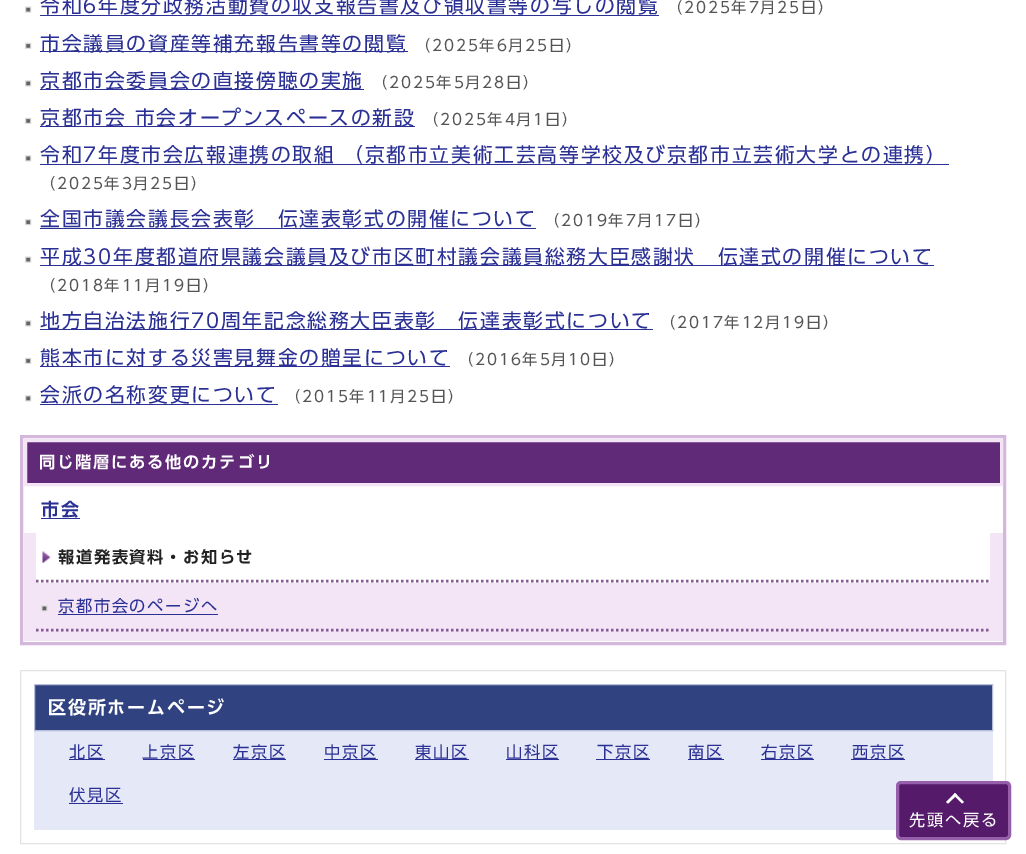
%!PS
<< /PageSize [1026 854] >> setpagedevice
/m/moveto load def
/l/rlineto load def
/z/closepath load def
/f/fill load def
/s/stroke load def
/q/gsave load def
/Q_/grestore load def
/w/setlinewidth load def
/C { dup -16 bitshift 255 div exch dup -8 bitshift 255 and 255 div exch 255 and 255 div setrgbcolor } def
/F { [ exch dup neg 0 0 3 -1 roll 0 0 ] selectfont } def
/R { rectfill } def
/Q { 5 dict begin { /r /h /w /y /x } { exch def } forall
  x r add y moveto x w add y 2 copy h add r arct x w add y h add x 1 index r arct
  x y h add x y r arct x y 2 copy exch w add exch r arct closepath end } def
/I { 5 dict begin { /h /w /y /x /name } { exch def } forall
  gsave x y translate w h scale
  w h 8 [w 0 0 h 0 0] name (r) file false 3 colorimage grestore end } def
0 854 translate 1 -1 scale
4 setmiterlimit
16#FFFFFF C
0 0 1026 854 R
(1.rgb) 25 6 7 7 I
/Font-Regular 19.8 F
16#2B3095 C
40 13 m 1.8 0 (令和6年度分政務活動費の収支報告書及び領収書等の写しの閲覧) ashow
40 15 619 1 R
/Font-Regular 15.25 F
16#555555 C
667 13 m 1.8 0 (（2025年7月25日）) ashow
(2.rgb) 25 42 7 7 I
16#2B3095 C
40 51 368 1 R
/Font-Regular 19.8 F
40 51 m 1.8 0 (市会議員の資産等補充報告書等の閲覧) ashow
/Font-Regular 15.25 F
16#555555 C
415 51 m 1.8 0 (（2025年6月25日）) ashow
(3.rgb) 25 80 7 7 I
16#2B3095 C
40 89 324 1 R
/Font-Regular 19.8 F
40 88 m 1.8 0 (京都市会委員会の直接傍聴の実施) ashow
/Font-Regular 15.25 F
16#555555 C
372 88 m 1.8 0 (（2025年5月28日）) ashow
(2.rgb) 25 117 7 7 I
16#2B3095 C
40 126 375 1 R
/Font-Regular 19.8 F
40 125 m 1.8 0 (京都市会 市会オープンスペースの新設) ashow
/Font-Regular 15.25 F
16#555555 C
423 125 m 1.8 0 (（2025年4月1日）) ashow
(3.rgb) 25 155 7 7 I
/Font-Regular 19.8 F
16#2B3095 C
40 162 m -1 0 32 1.8 0 (令和7年度市会広報連携の取組 （京都市立美術工芸高等学校及び京都市立芸術大学との連携）) awidthshow
40 164 909 1 R
/Font-Regular 15.25 F
16#555555 C
40 189 m 1.8 0 (（2025年3月25日）) ashow
(4.rgb) 25 219 7 7 I
/Font-Regular 19.8 F
16#2B3095 C
40 226 m 1.8 0 (全国市議会議長会表彰　伝達表彰式の開催について) ashow
40 228 496 1 R
/Font-Regular 15.25 F
16#555555 C
544 226 m 1.8 0 (（2019年7月17日）) ashow
(1.rgb) 25 256 7 7 I
16#2B3095 C
40 265 894 1 R
/Font-Regular 19.8 F
40 264 m 1.8 0 (平成30年度都道府県議会議員及び市区町村議会議員総務大臣感謝状　伝達式の開催について) ashow
/Font-Regular 15.25 F
16#555555 C
40 291 m 1.8 0 (（2018年11月19日）) ashow
(5.rgb) 25 320 7 7 I
16#2B3095 C
40 329 613 1 R
/Font-Regular 19.8 F
40 328 m 1.8 0 (地方自治法施行70周年記念総務大臣表彰　伝達表彰式について) ashow
/Font-Regular 15.25 F
16#555555 C
660 328 m 1.8 0 (（2017年12月19日）) ashow
(2.rgb) 25 357 7 7 I
16#2B3095 C
40 366 410 1 R
/Font-Regular 19.8 F
40 365 m 1.8 0 (熊本市に対する災害見舞金の贈呈について) ashow
/Font-Regular 15.25 F
16#555555 C
458 365 m 1.8 0 (（2016年5月10日）) ashow
(3.rgb) 25 395 7 7 I
/Font-Regular 19.8 F
16#2B3095 C
40 402 m 1.8 0 (会派の名称変更について) ashow
40 404 238 1 R
/Font-Regular 15.25 F
16#555555 C
285 402 m 1.8 0 (（2015年11月25日）) ashow
16#D4B7DB C
3 w
21.5 436.5 983 207 rectstroke
16#612A78 C
25.5 440.5 m 976 0 l 0 44 l -976 0 l z q f Q_
16#F3E5F6 C
s
/Font-SemiBold 16.25 F
16#FFFFFF C
39 468 m 1.8 0 (同じ階層にある他のカテゴリ) ashow
/Font-SemiBold 18 F
16#2B3095 C
41 516 m 1.8 0 (市会) ashow
41 518 39 1 R
16#F3E5F6 C
24 533 979 108 R
16#FFFFFF C
36 533 954 50 R
(6.rgb) 42 551 9 12 I
16#865C97 C
2.5 w
[2.5 2.5] 0 setdash
36 581 m 954 0 l s
/Font-SemiBold 16.25 F
16#222222 C
58 563 m 1.6 0 (報道発表資料・お知らせ) ashow
(7.rgb) 41 605 7 7 I
16#865C97 C
36 630 m 954 0 l s
/Font-Regular 16.25 F
16#2B3095 C
58 612 m 1.6 0 (京都市会のページへ) ashow
58 614 160 1 R
16#E3E3E3 C
1 w
[] 0 setdash
20.5 670.5 985 173 rectstroke
16#E5E8F6 C
34 731 959 99 R
16#304280 C
34.5 684.5 m 958 0 l 0 46 l -958 0 l z q f Q_
16#B7BEDB C
s
/Font-SemiBold 18 F
16#FFFFFF C
48 714 m 1.8 0 (区役所ホームページ) ashow
16#2B3095 C
69 759 36 1 R
/Font-Regular 16.25 F
69 758 m 1.6 0 (北区) ashow
143 759 52 1 R
142 758 m 1.6 0 (上京区) ashow
233 759 53 1 R
233 758 m 1.6 0 (左京区) ashow
324 759 54 1 R
324 758 m 1.6 0 (中京区) ashow
415 759 54 1 R
415 758 m 1.6 0 (東山区) ashow
506 759 53 1 R
506 758 m 1.6 0 (山科区) ashow
596 759 54 1 R
597 758 m 1.6 0 (下京区) ashow
688 759 36 1 R
688 758 m 1.6 0 (南区) ashow
761 759 53 1 R
761 758 m 1.6 0 (右京区) ashow
851 759 54 1 R
852 758 m 1.6 0 (西京区) ashow
69 801 m 1.6 0 (伏見区) ashow
69 803 54 1 R
16#551A6A C
897.5 782.5 112 56 3.5 Q q f Q_
16#965FAA C
3 w
s
16#FFFFFF C
948 803.5 m -2 -1.5 l 9 -9 l 2 2 l z f
962 803.5 m -8.5 -8.5 l 1.5 -2 l 9 9 l z f
909 826 m 1.8 0 (先頭へ戻る) ashow
showpage
